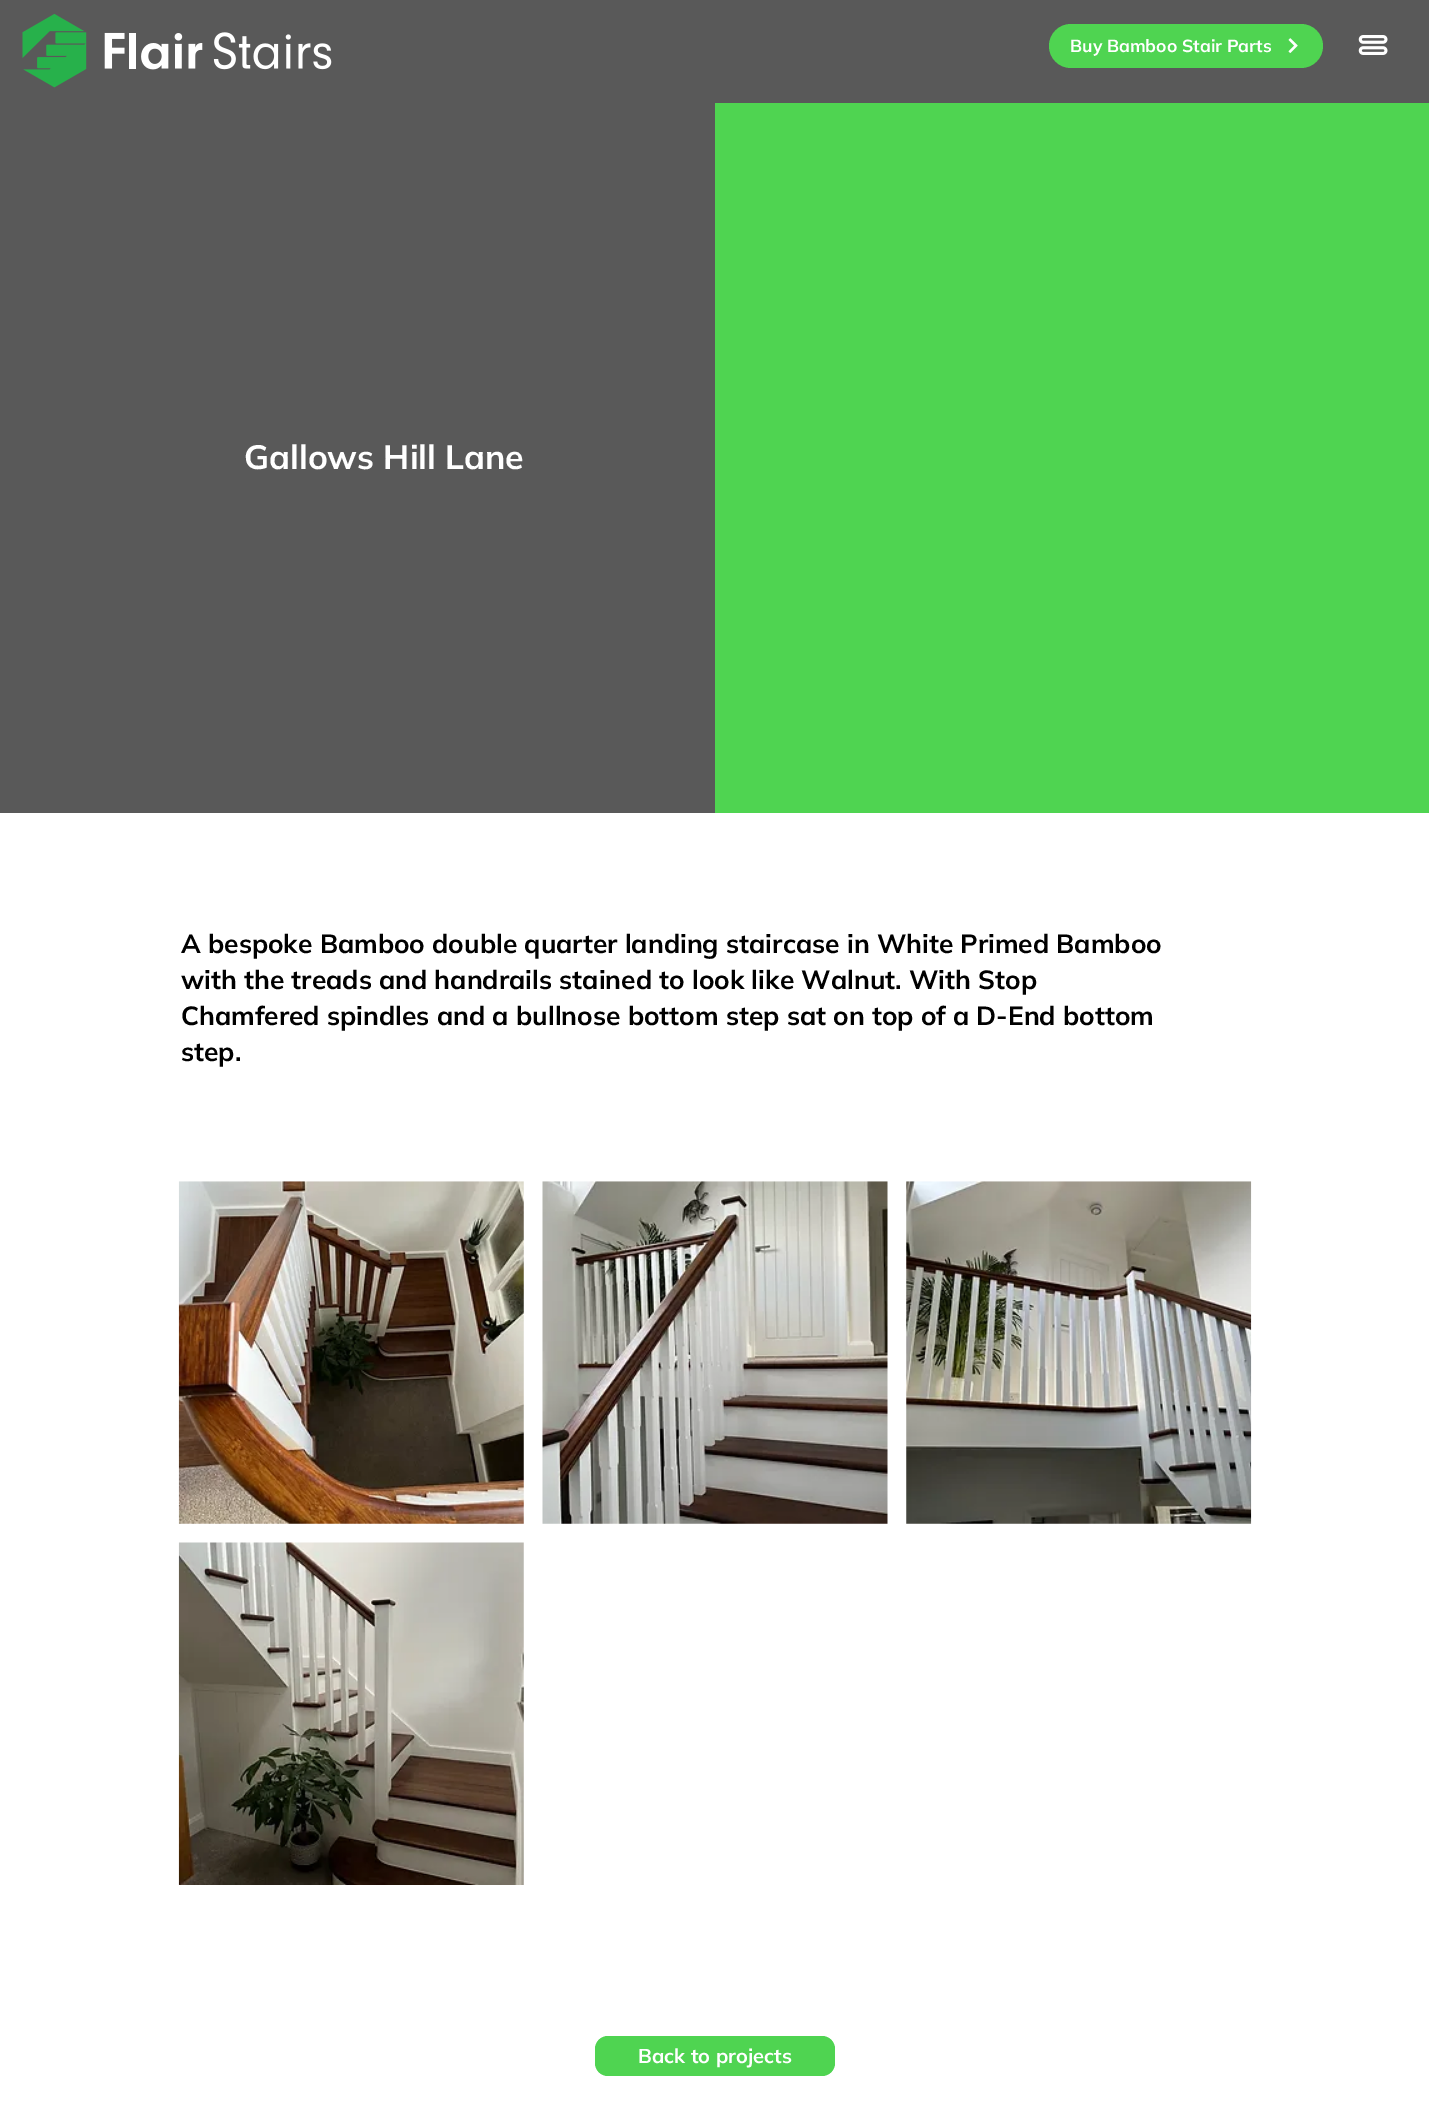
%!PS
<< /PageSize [1429 2118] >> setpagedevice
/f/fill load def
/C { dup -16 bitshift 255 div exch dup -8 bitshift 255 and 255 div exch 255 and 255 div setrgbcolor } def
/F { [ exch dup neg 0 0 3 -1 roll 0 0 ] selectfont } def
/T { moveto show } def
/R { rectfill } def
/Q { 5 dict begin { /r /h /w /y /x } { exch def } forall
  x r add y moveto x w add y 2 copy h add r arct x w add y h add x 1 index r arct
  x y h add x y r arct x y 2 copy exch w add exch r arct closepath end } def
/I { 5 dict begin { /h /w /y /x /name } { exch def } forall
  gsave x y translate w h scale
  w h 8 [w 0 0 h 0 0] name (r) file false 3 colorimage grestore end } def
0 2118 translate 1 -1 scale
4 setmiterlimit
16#FFFFFF C
0 0 1429 2118 R
16#595959 C
0 0 1429 103 R
(1.rgb) 22 14 310 74 I
16#4FD451 C
1049 24 274 44 22 Q f
/Mulish-Bold 17.5 F
16#FFFFFF C
(Buy Bamboo Stair Parts) 1070 52 T
(2.rgb) 1288 38 10 15 I
(3.rgb) 1358 35 30 20 I
16#595959 C
0 103 715 710 R
/Mulish-Bold 33.75 F
16#FFFFFF C
(Gallows Hill Lane) 244 469 T
16#4FD451 C
715 103 714 710 R
/Mulish-Bold 26.25 F
16#000000 C
(A bespoke Bamboo double quarter landing staircase in White Primed Bamboo) 181 953 T
(with the treads and handrails stained to look like Walnut. With Stop) 181 989 T
(Chamfered spindles and a bullnose bottom step sat on top of a D-End bottom) 181 1025 T
(step.) 181 1061 T
(4.rgb) 178 1181 346 343 I
(5.rgb) 542 1181 346 343 I
(6.rgb) 906 1181 346 343 I
(7.rgb) 178 1542 346 343 I
16#4FD451 C
595 2036 240 40 13 Q f
/Mulish-Bold 20 F
16#FFFFFF C
(Back to projects) 638 2063 T
showpage
